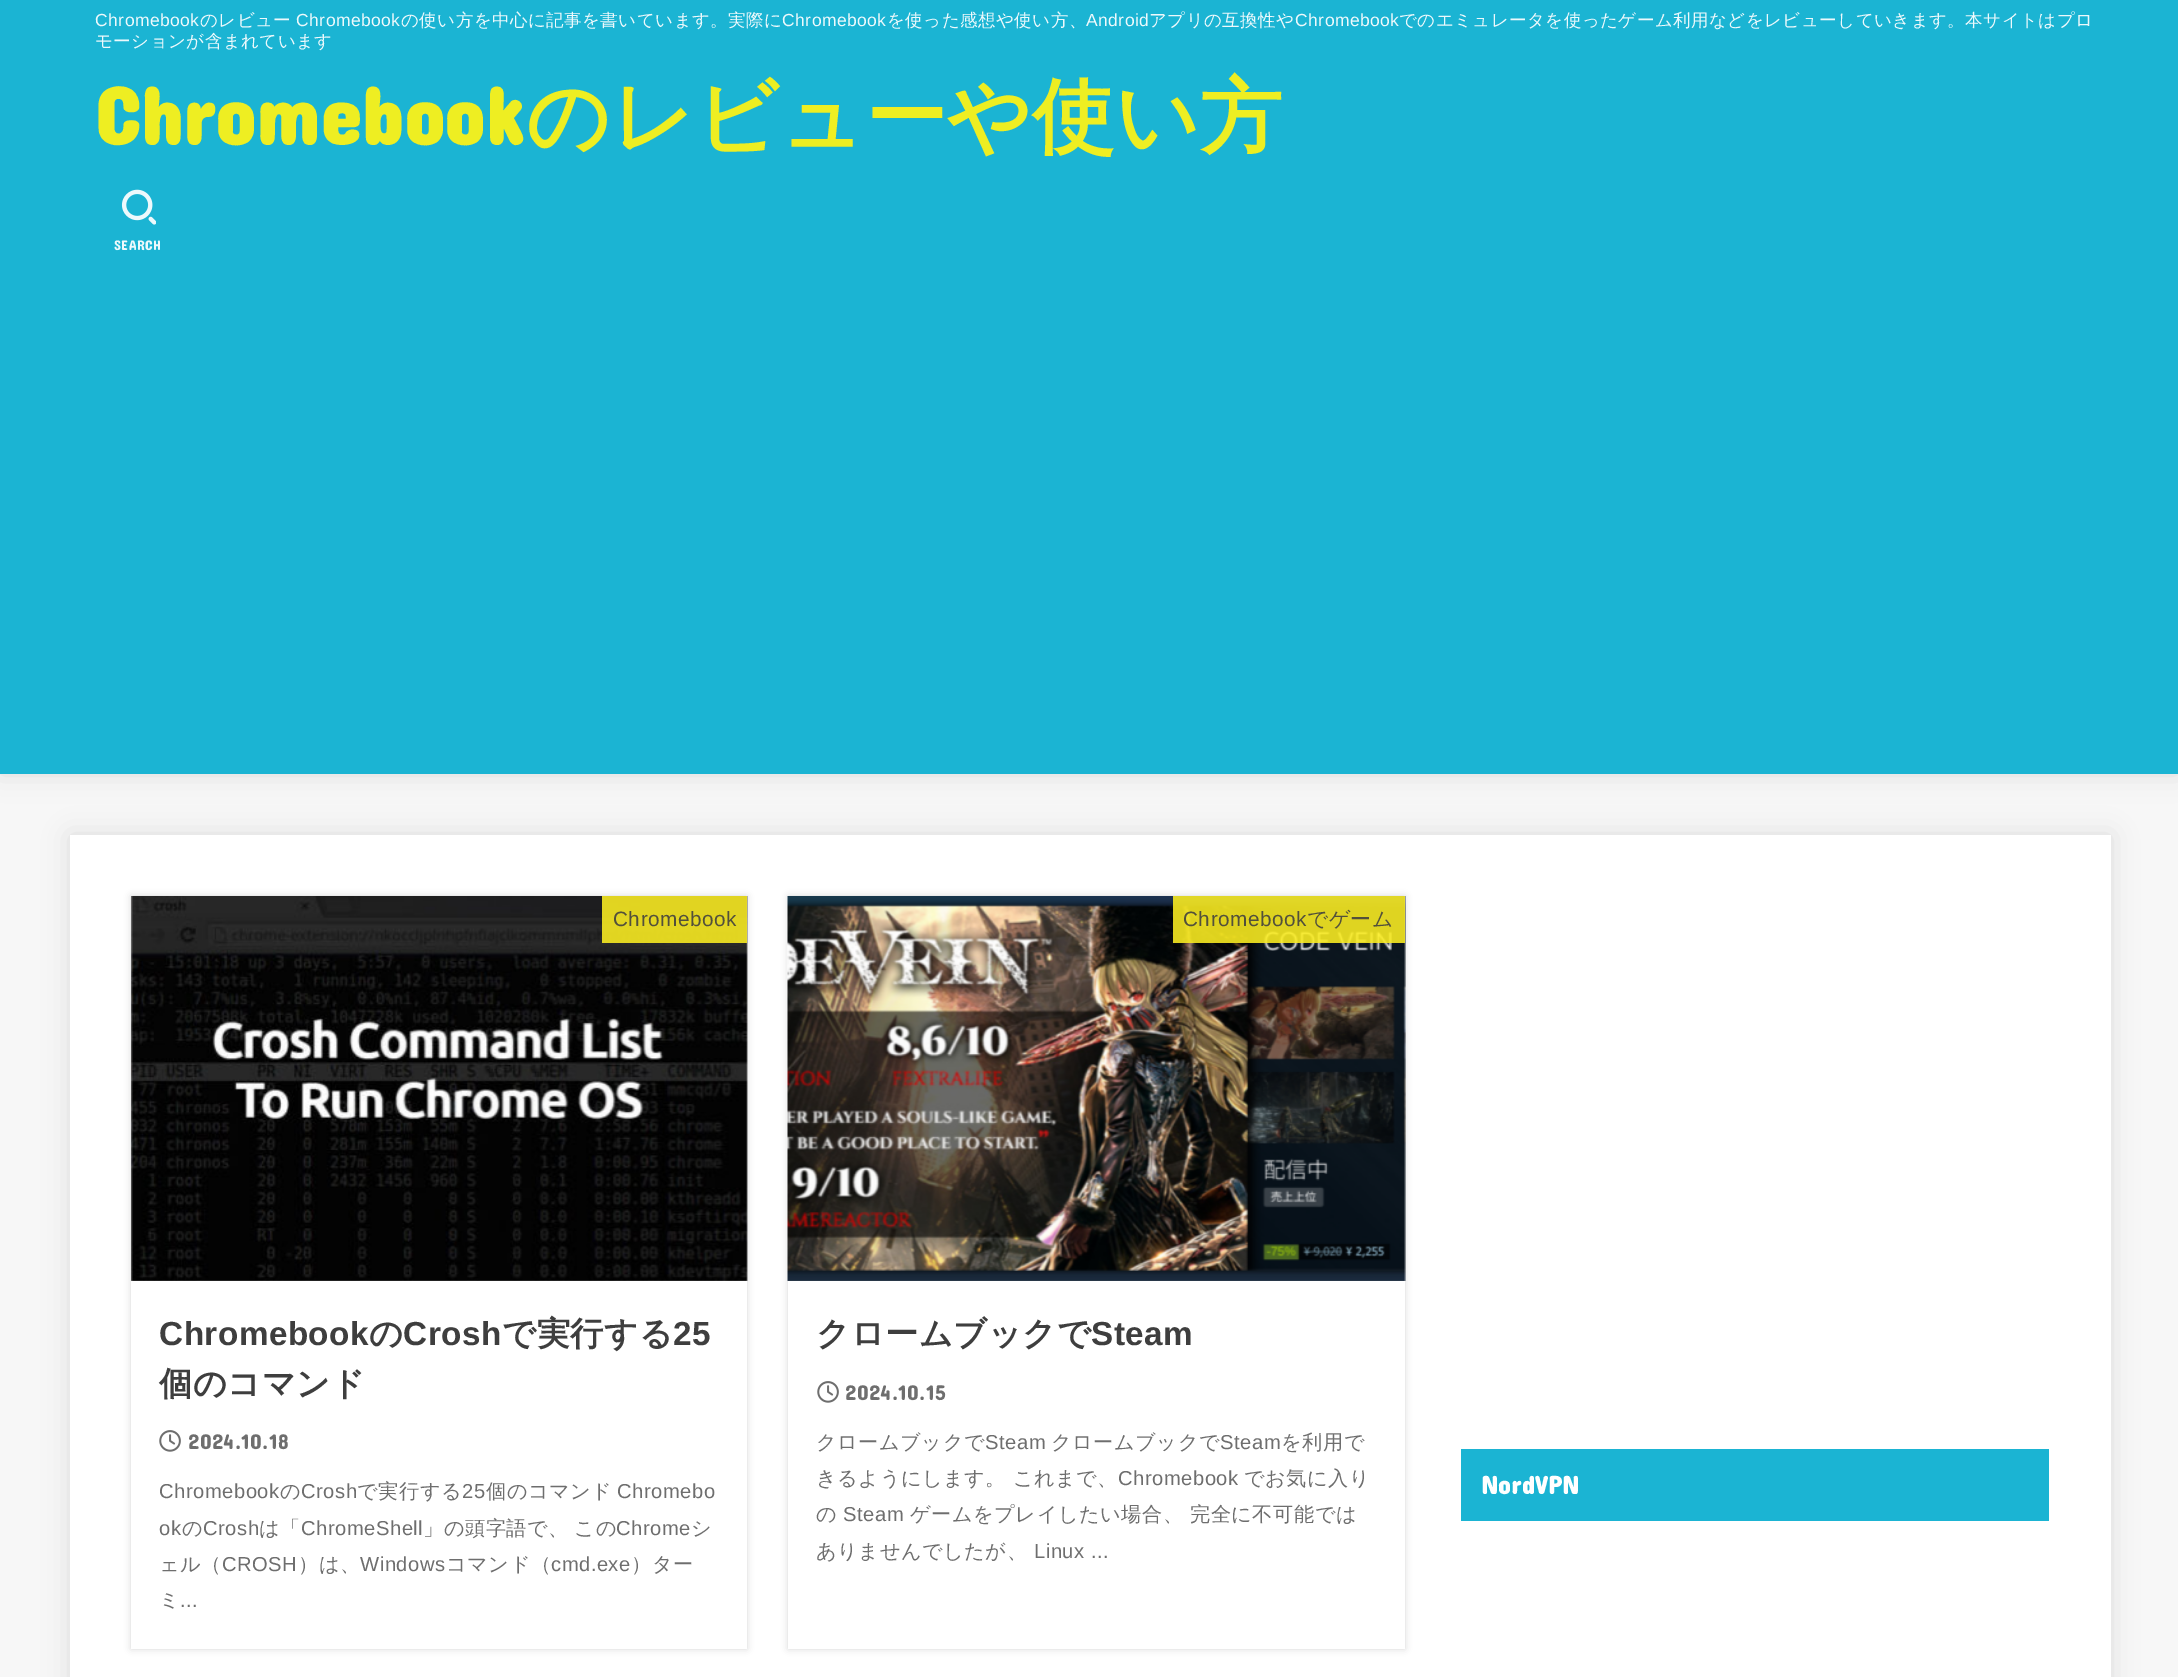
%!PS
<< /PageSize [2178 1677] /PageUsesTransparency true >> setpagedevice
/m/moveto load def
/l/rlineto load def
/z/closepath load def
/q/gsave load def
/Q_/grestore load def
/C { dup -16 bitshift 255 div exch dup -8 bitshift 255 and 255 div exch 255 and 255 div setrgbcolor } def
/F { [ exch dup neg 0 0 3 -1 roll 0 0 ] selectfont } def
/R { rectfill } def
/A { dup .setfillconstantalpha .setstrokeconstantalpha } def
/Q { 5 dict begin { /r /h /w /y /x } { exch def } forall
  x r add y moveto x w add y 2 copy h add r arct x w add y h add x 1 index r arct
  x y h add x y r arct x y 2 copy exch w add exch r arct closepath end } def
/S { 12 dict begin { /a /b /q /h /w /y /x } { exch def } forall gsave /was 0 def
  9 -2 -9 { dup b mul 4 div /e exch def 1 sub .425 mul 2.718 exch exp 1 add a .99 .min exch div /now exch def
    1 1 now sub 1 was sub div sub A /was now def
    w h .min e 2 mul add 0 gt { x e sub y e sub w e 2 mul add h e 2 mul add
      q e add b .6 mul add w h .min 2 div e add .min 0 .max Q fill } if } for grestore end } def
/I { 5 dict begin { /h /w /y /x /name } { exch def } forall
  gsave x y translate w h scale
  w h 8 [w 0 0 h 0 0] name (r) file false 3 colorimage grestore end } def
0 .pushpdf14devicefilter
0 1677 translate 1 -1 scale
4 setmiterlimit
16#F7F7F7 C
0 0 2178 1677 R
16#666666 C
0 0 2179 774 0 13 .2 S
16#1BB4D3 C
0 0 2178 774 R
/LiberationSans-Regular 17.5 F
16#EDF9FC C
95 26 m .45 0 (Chromebook) ashow
/WenQuanYiZenHei-Medium 17.5 F
200 26 m .45 0 (のレビュー) ashow
/LiberationSans-Regular 17.5 F
296 26 m .45 0 (Chromebook) ashow
/WenQuanYiZenHei-Medium 17.5 F
401 26 m .45 0 (の使い方を中心に記事を書いています。実際に) ashow
/LiberationSans-Regular 17.5 F
782 26 m .45 0 (Chromebook) ashow
/WenQuanYiZenHei-Medium 17.5 F
887 26 m .45 0 (を使った感想や使い方、) ashow
/LiberationSans-Regular 17.5 F
1086 26 m .45 0 (Android) ashow
/WenQuanYiZenHei-Medium 17.5 F
1149 26 m .45 0 (アプリの互換性や) ashow
/LiberationSans-Regular 17.5 F
1295 26 m .45 0 (Chromebook) ashow
/WenQuanYiZenHei-Medium 17.5 F
1399 26 m .45 0 (でのエミュレータを使ったゲーム利用などをレビューしていきます。本サイトはプロ) ashow
95 47 m .45 0 (モーションが含まれています) ashow
/ConcertOne-Bold 82.25 F
16#EEEE22 C
95 145 m .5 0 (Chromebook) ashow
/WenQuanYiZenHei-Bold 82.25 F
526 145 m .5 0 (のレビューや使い方) ashow
(1.rgb) 121 189 35 36 I
/ConcertOne-Regular 14 F
16#EDF9FC C
114 250 m .5 0 (SEARCH) ashow
16#666666 C
70 835 2041 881 0 13 .2 S
16#FFFFFF C
70 835 2041 842 R
q
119 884 m 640 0 l 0 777 l -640 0 l z 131 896 m 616 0 l 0 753 l -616 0 l z eoclip newpath
16#000000 C
131 896 616 753 0 3.5 .15 S
Q_
(2.rgb) 131 896 617 385 I
0.88 A
16#FCEE21 C
602 896 145 47 R
/LiberationSans-Regular 20.75 F
1 A
16#52503B C
613 926 m .5 0 (Chromebook) ashow
/LiberationSans-Bold 33.25 F
16#3E3E3E C
159 1345 m .5 0 (Chromebook) ashow
/WenQuanYiZenHei-Bold 33.25 F
369 1345 m .5 0 (の) ashow
/LiberationSans-Bold 33.25 F
403 1345 m .5 0 (Crosh) ashow
/WenQuanYiZenHei-Bold 33.25 F
502 1345 m .5 0 (で実行する) ashow
/LiberationSans-Bold 33.25 F
673 1345 m .5 0 (25) ashow
/WenQuanYiZenHei-Bold 33.25 F
159 1395 m .5 0 (個のコマンド) ashow
(3.rgb) 159 1430 22 22 I
/ConcertOne-Regular 21.5 F
16#6E6E6E C
188 1449 m .5 0 (2024.10.18) ashow
/LiberationSans-Regular 20.2 F
159 1498 m .5 0 (Chromebook) ashow
/WenQuanYiZenHei-Medium 20.2 F
280 1498 m .5 0 (の) ashow
/LiberationSans-Regular 20.2 F
301 1498 m .5 0 (Crosh) ashow
/WenQuanYiZenHei-Medium 20.2 F
357 1498 m .5 0 (で実行する) ashow
/LiberationSans-Regular 20.2 F
462 1498 m .5 0 (25) ashow
/WenQuanYiZenHei-Medium 20.2 F
486 1498 m .5 0 (個のコマンド) ashow
/LiberationSans-Regular 20.2 F
617 1498 m .5 0 (Chromebo) ashow
159 1535 m .5 0 (ok) ashow
/WenQuanYiZenHei-Medium 20.2 F
182 1535 m .5 0 (の) ashow
/LiberationSans-Regular 20.2 F
203 1535 m .5 0 (Crosh) ashow
/WenQuanYiZenHei-Medium 20.2 F
259 1535 m .5 0 (は「) ashow
/LiberationSans-Regular 20.2 F
301 1535 m .5 0 (ChromeShell) ashow
/WenQuanYiZenHei-Medium 20.2 F
423 1535 m -1 0 32 .5 0 (」の頭字語で、 この) awidthshow
/LiberationSans-Regular 20.2 F
616 1535 m .5 0 (Chrome) ashow
/WenQuanYiZenHei-Medium 20.2 F
691 1535 m .5 0 (シ) ashow
159 1571 m .5 0 (ェル（) ashow
/LiberationSans-Regular 20.2 F
222 1571 m .5 0 (CROSH) ashow
/WenQuanYiZenHei-Medium 20.2 F
298 1571 m .5 0 (）は、) ashow
/LiberationSans-Regular 20.2 F
360 1571 m .5 0 (Windows) ashow
/WenQuanYiZenHei-Medium 20.2 F
446 1571 m .5 0 (コマンド（) ashow
/LiberationSans-Regular 20.2 F
551 1571 m .5 0 (cmd.exe) ashow
/WenQuanYiZenHei-Medium 20.2 F
631 1571 m .5 0 (）ター) ashow
159 1607 m .5 0 (ミ) ashow
/LiberationSans-Regular 20.2 F
180 1607 m .5 0 (...) ashow
q
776 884 m 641 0 l 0 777 l -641 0 l z 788 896 m 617 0 l 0 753 l -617 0 l z eoclip newpath
16#000000 C
788 896 617 753 0 3.5 .15 S
Q_
(4.rgb) 787 896 619 385 I
0.88 A
16#FCEE21 C
1173 896 232 47 R
/LiberationSans-Regular 20.75 F
1 A
16#52503B C
1183 926 m .5 0 (Chromebook) ashow
/WenQuanYiZenHei-Medium 20.75 F
1307 926 m .5 0 (でゲーム) ashow
/WenQuanYiZenHei-Bold 33.25 F
16#3E3E3E C
816 1345 m .5 0 (クロームブックで) ashow
/LiberationSans-Bold 33.25 F
1091 1345 m .5 0 (Steam) ashow
(3.rgb) 817 1381 22 22 I
/ConcertOne-Regular 21.5 F
16#6E6E6E C
845 1400 m .5 0 (2024.10.15) ashow
/WenQuanYiZenHei-Medium 20.2 F
816 1449 m .5 0 (クロームブックで) ashow
/LiberationSans-Regular 20.2 F
985 1449 m .5 0 (Steam) ashow
/WenQuanYiZenHei-Medium 20.2 F
1051 1449 m .5 0 (クロームブックで) ashow
/LiberationSans-Regular 20.2 F
1220 1449 m .5 0 (Steam) ashow
/WenQuanYiZenHei-Medium 20.2 F
1281 1449 m .5 0 (を利用で) ashow
816 1485 m .5 0 (きるようにします。 これまで、) ashow
/LiberationSans-Regular 20.2 F
1118 1485 m .5 0 (Chromebook) ashow
/WenQuanYiZenHei-Medium 20.2 F
1244 1485 m .5 0 (でお気に入り) ashow
816 1521 m .5 0 (の) ashow
/LiberationSans-Regular 20.2 F
843 1521 m .5 0 (Steam) ashow
/WenQuanYiZenHei-Medium 20.2 F
910 1521 m .5 0 (ゲームをプレイしたい場合、 完全に不可能では) ashow
816 1558 m .5 0 (ありませんでしたが、) ashow
/LiberationSans-Regular 20.2 F
1034 1558 m .5 0 (Linux ...) ashow
16#1BB4D3 C
1461 1449 588 72 R
/ConcertOne-Bold 25.5 F
16#FFFFFF C
1481 1494 m .5 0 (NordVPN) ashow
.poppdf14devicefilter showpage
